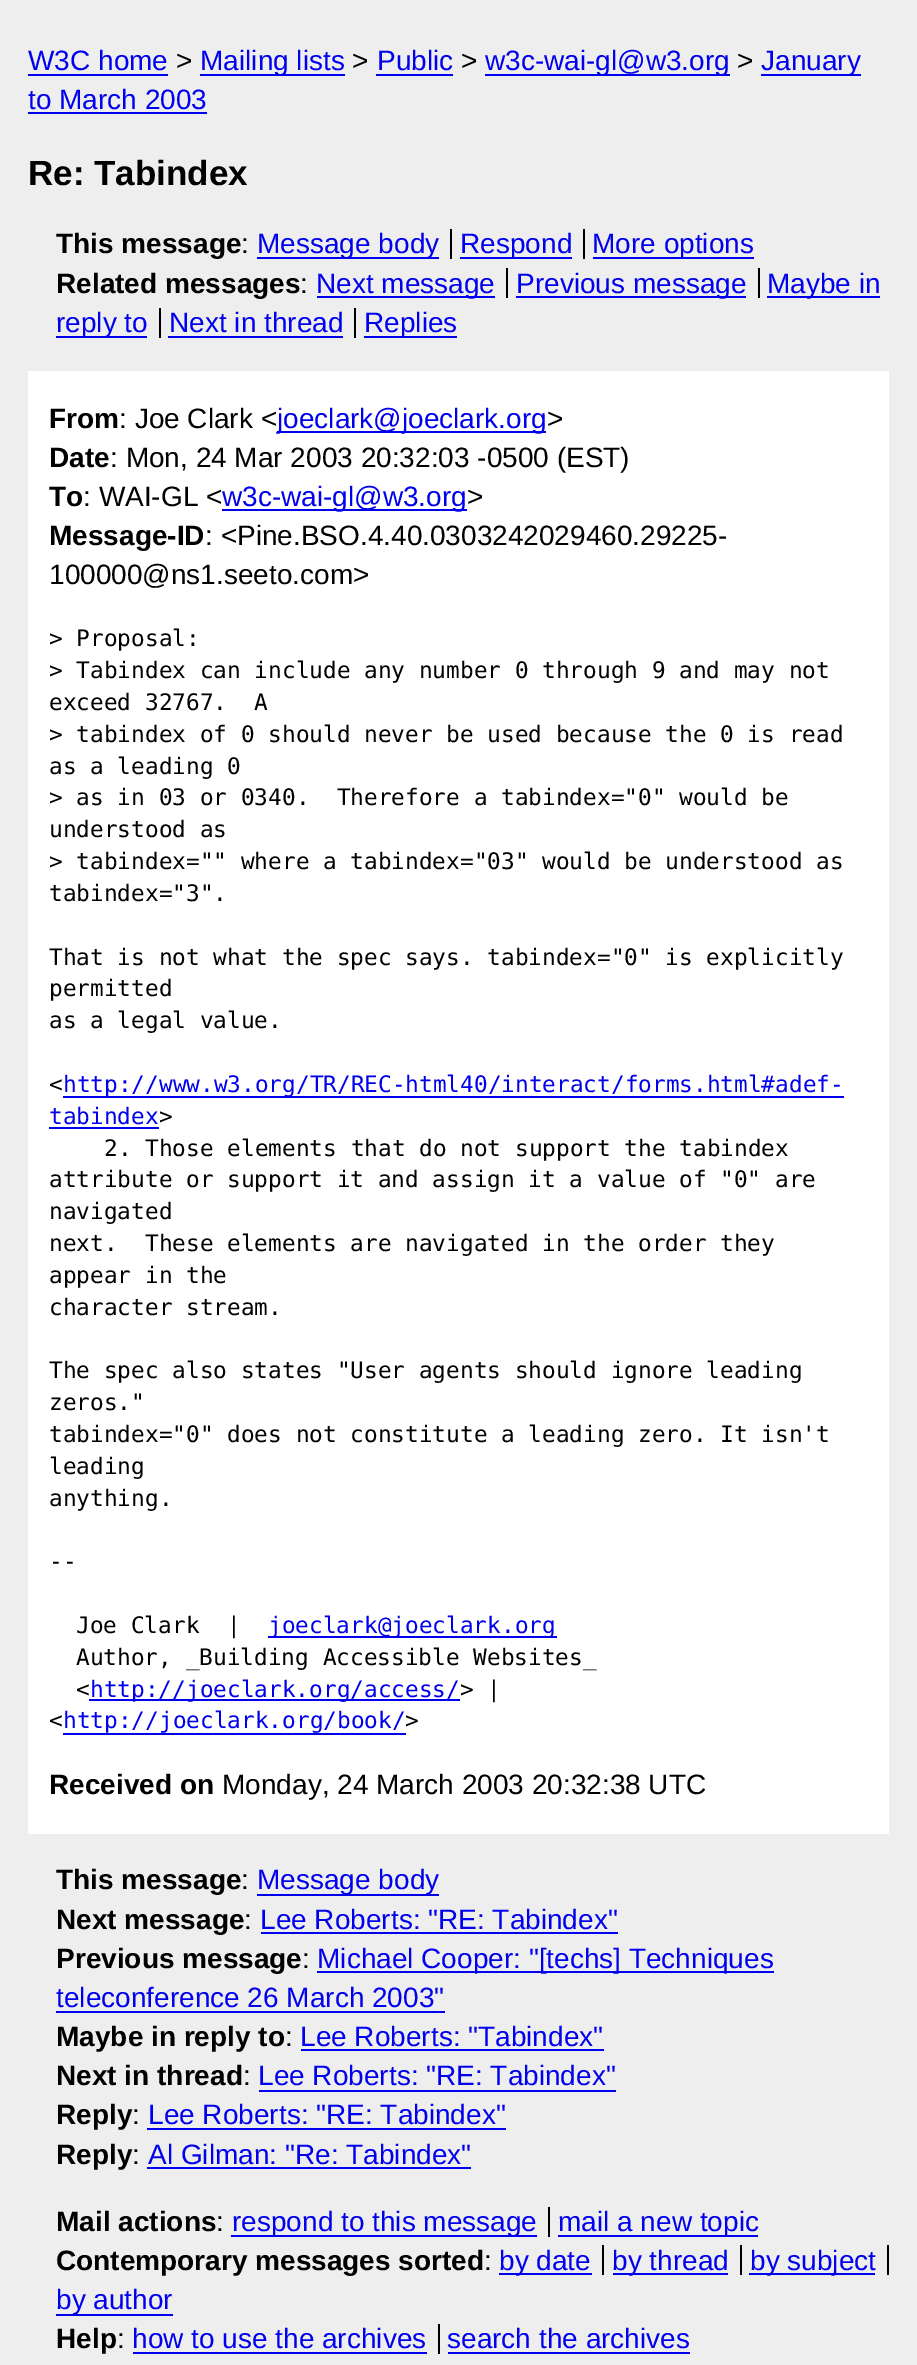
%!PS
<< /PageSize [917 2365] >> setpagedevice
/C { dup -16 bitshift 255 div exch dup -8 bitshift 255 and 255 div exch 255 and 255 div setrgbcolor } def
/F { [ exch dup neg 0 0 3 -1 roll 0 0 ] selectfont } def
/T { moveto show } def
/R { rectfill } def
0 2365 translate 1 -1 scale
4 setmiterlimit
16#EEEEEE C
0 0 917 2365 R
/LiberationSans-Regular 28 F
16#0000EE C
(W3C home) 28 70 T
28 74 140 2 R
16#000000 C
(>) 176 70 T
16#0000EE C
200 74 145 2 R
(Mailing lists) 200 70 T
16#000000 C
(>) 352 70 T
16#0000EE C
(Public) 377 70 T
376 74 77 2 R
16#000000 C
(>) 461 70 T
16#0000EE C
485 74 245 2 R
(w3c-wai-gl@w3.org) 485 70 T
16#000000 C
(>) 737 70 T
16#0000EE C
761 74 100 2 R
(January) 761 70 T
(to March 2003) 28 109 T
28 112 179 2 R
/LiberationSans-Bold 35 F
16#000000 C
(Re: Tabindex) 28 185 T
/LiberationSans-Bold 28 F
(This message) 56 253 T
/LiberationSans-Regular 28 F
(:) 241 253 T
16#0000EE C
257 257 182 2 R
(Message body) 257 253 T
460 257 112 2 R
(Respond) 460 253 T
16#000000 C
450 229 2 30 R
16#0000EE C
593 257 161 2 R
(More options) 592 253 T
16#000000 C
583 229 2 30 R
/LiberationSans-Bold 28 F
(Related messages) 56 293 T
/LiberationSans-Regular 28 F
(:) 300 293 T
16#0000EE C
317 296 178 2 R
(Next message) 316 293 T
516 296 230 2 R
(Previous message) 516 293 T
16#000000 C
506 268 2 30 R
16#0000EE C
767 296 113 2 R
(Maybe in) 767 293 T
16#000000 C
758 268 2 30 R
16#0000EE C
56 336 91 2 R
(reply to) 56 332 T
(Next in thread) 169 332 T
16#000000 C
159 308 2 30 R
16#0000EE C
168 336 175 2 R
364 336 93 2 R
(Replies) 364 332 T
16#000000 C
354 308 2 30 R
16#FFFFFF C
28 371 861 1463 R
/LiberationSans-Bold 28 F
16#000000 C
(From) 49 428 T
/LiberationSans-Regular 28 F
(: Joe Clark <) 119 428 T
16#0000EE C
277 431 269 2 R
(joeclark@joeclark.org) 277 428 T
16#000000 C
(>) 547 428 T
/LiberationSans-Bold 28 F
(Date) 49 467 T
/LiberationSans-Regular 28 F
(: Mon, 24 Mar 2003 20:32:03 -0500 \(EST\)) 110 467 T
/LiberationSans-Bold 28 F
(To) 49 506 T
/LiberationSans-Regular 28 F
(: WAI-GL <) 83 506 T
16#0000EE C
222 509 245 2 R
(w3c-wai-gl@w3.org) 222 506 T
16#000000 C
(>) 467 506 T
/LiberationSans-Bold 28 F
(Message-ID) 49 545 T
/LiberationSans-Regular 28 F
(: <Pine.BSO.4.40.0303242029460.29225-) 205 545 T
(100000@ns1.seeto.com>) 49 584 T
/DejaVuSansMono-Regular 22.75 F
(> Proposal:) 49 646 T
(> Tabindex can include any number 0 through 9 and may not) 49 678 T
(exceed 32767.  A) 49 710 T
(> tabindex of 0 should never be used because the 0 is read) 49 742 T
(as a leading 0) 49 774 T
(> as in 03 or 0340.  Therefore a tabindex="0" would be) 49 805 T
(understood as) 49 837 T
(> tabindex="" where a tabindex="03" would be understood as) 49 869 T
(tabindex="3".) 49 901 T
(That is not what the spec says. tabindex="0" is explicitly) 49 965 T
(permitted) 49 996 T
(as a legal value.) 49 1028 T
(<) 49 1092 T
16#0000EE C
63 1096 781 2 R
(http://www.w3.org/TR/REC-html40/interact/forms.html#adef-) 63 1092 T
(tabindex) 49 1124 T
49 1127 110 2 R
16#000000 C
(>) 159 1124 T
(2. Those elements that do not support the tabindex) 104 1156 T
(attribute or support it and assign it a value of "0" are) 49 1187 T
(navigated) 49 1219 T
(next.  These elements are navigated in the order they) 49 1251 T
(appear in the) 49 1283 T
(character stream.) 49 1315 T
(The spec also states "User agents should ignore leading) 49 1378 T
(zeros.") 49 1410 T
(tabindex="0" does not constitute a leading zero. It isn't) 49 1442 T
(leading) 49 1474 T
(anything.) 49 1506 T
(--) 49 1569 T
(Joe Clark  |) 76 1633 T
16#0000EE C
268 1636 289 2 R
(joeclark@joeclark.org) 268 1633 T
16#000000 C
(Author, _Building Accessible Websites_) 76 1665 T
(<) 76 1697 T
16#0000EE C
89 1699 371 2 R
(http://joeclark.org/access/) 90 1697 T
16#000000 C
(> |) 460 1697 T
(<) 49 1728 T
16#0000EE C
(http://joeclark.org/book/) 63 1728 T
63 1733 343 2 R
16#000000 C
(>) 405 1728 T
/LiberationSans-Bold 28 F
(Received on) 49 1794 T
/LiberationSans-Regular 28 F
(Monday, 24 March 2003 20:32:38 UTC) 222 1794 T
/LiberationSans-Bold 28 F
(This message) 56 1889 T
/LiberationSans-Regular 28 F
(:) 241 1889 T
16#0000EE C
257 1894 182 2 R
(Message body) 257 1889 T
/LiberationSans-Bold 28 F
16#000000 C
(Next message) 56 1929 T
/LiberationSans-Regular 28 F
(:) 244 1929 T
16#0000EE C
(Lee Roberts: "RE: Tabindex") 260 1929 T
261 1932 357 2 R
/LiberationSans-Bold 28 F
16#000000 C
(Previous message) 56 1968 T
/LiberationSans-Regular 28 F
(:) 302 1968 T
16#0000EE C
317 1971 457 2 R
(Michael Cooper: "[techs] Techniques) 317 1968 T
(teleconference 26 March 2003") 56 2007 T
56 2011 389 2 R
/LiberationSans-Bold 28 F
16#000000 C
(Maybe in reply to) 56 2046 T
/LiberationSans-Regular 28 F
(:) 285 2046 T
16#0000EE C
(Lee Roberts: "Tabindex") 300 2046 T
301 2049 303 2 R
/LiberationSans-Bold 28 F
16#000000 C
(Next in thread) 56 2085 T
/LiberationSans-Regular 28 F
(:) 243 2085 T
16#0000EE C
(Lee Roberts: "RE: Tabindex") 258 2085 T
259 2090 357 2 R
/LiberationSans-Bold 28 F
16#000000 C
(Reply) 56 2124 T
/LiberationSans-Regular 28 F
(:) 132 2124 T
16#0000EE C
(Lee Roberts: "RE: Tabindex") 148 2124 T
147 2128 359 2 R
/LiberationSans-Bold 28 F
16#000000 C
(Reply) 56 2164 T
/LiberationSans-Regular 28 F
(:) 132 2164 T
16#0000EE C
(Al Gilman: "Re: Tabindex") 148 2164 T
147 2167 324 2 R
/LiberationSans-Bold 28 F
16#000000 C
(Mail actions) 56 2231 T
/LiberationSans-Regular 28 F
(:) 216 2231 T
16#0000EE C
231 2235 306 2 R
(respond to this message) 232 2231 T
558 2235 200 2 R
(mail a new topic) 558 2231 T
16#000000 C
548 2207 2 30 R
/LiberationSans-Bold 28 F
(Contemporary messages sorted) 56 2270 T
/LiberationSans-Regular 28 F
(:) 484 2270 T
16#0000EE C
499 2273 93 2 R
(by date) 499 2270 T
613 2273 115 2 R
(by thread) 612 2270 T
16#000000 C
602 2245 2 30 R
16#0000EE C
749 2273 126 2 R
(by subject) 750 2270 T
16#000000 C
740 2245 2 30 R
887 2245 2 30 R
16#0000EE C
56 2314 117 2 R
(by author) 56 2309 T
/LiberationSans-Bold 28 F
16#000000 C
(Help) 56 2348 T
/LiberationSans-Regular 28 F
(:) 117 2348 T
16#0000EE C
(how to use the archives) 132 2348 T
133 2352 294 2 R
(search the archives) 447 2348 T
16#000000 C
438 2324 2 30 R
16#0000EE C
448 2352 242 2 R
showpage
